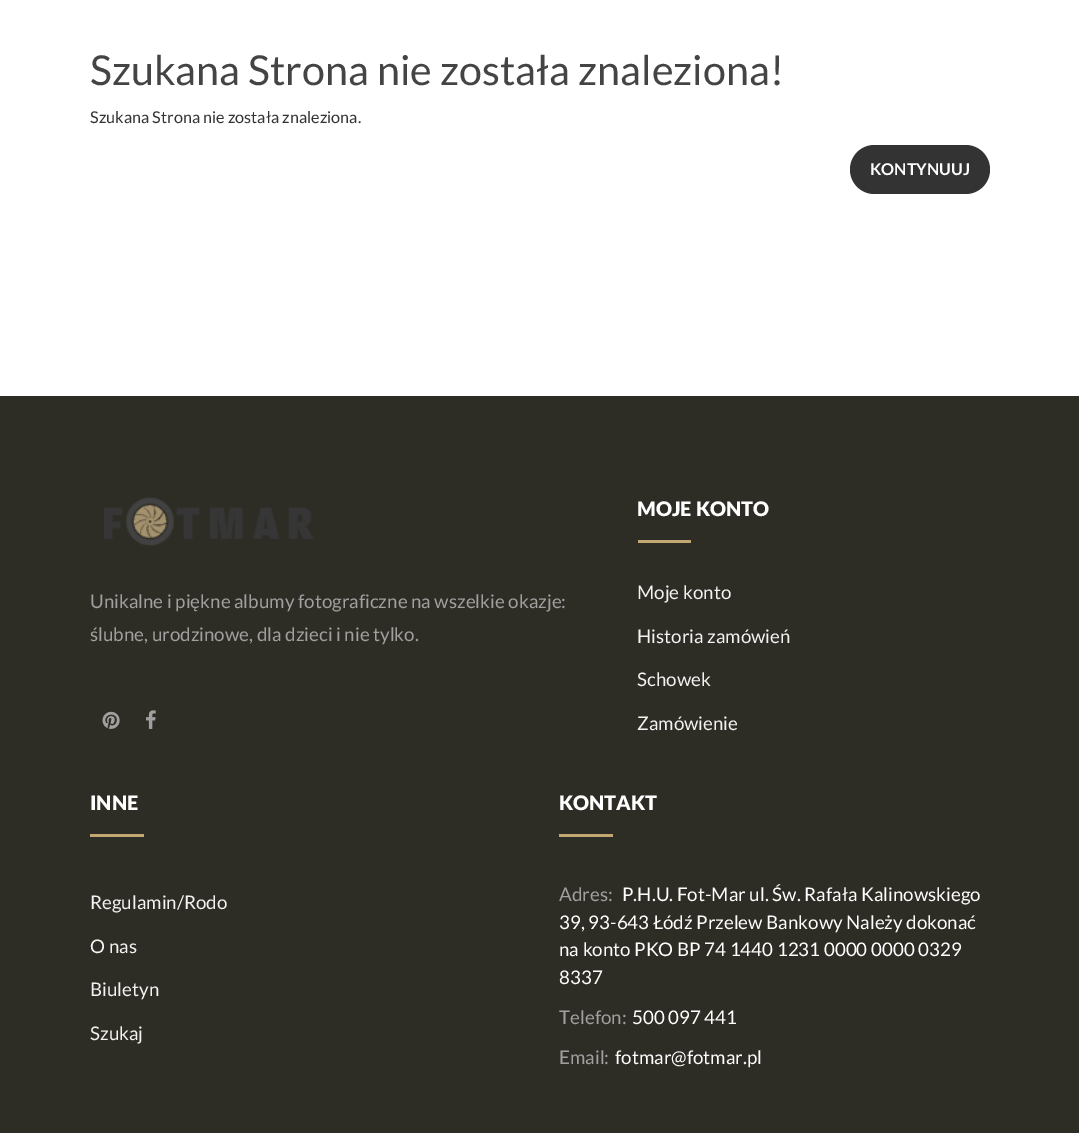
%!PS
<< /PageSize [1079 1133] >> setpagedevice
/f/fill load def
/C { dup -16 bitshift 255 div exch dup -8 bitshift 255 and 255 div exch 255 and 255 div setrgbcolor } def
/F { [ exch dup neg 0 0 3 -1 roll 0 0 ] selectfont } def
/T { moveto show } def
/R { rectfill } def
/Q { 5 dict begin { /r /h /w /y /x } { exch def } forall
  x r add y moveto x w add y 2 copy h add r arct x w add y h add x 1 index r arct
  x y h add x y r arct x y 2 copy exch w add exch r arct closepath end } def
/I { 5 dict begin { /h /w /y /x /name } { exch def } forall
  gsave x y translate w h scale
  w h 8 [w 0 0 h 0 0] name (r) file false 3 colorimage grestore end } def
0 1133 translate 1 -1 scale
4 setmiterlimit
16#FFFFFF C
0 0 1079 1133 R
/Lato-Regular 41.25 F
16#444444 C
(Szukana Strona nie została znaleziona!) 90 85 T
/Lato-Regular 16.25 F
16#333333 C
(Szukana Strona nie została znaleziona.) 90 123 T
850 145 140 49 24.5 Q f
/Lato-Bold 16.25 F
16#FFFFFF C
(KONTYNUUJ) 870 175 T
16#2E2D25 C
0 396 1079 737 R
(1.rgb) 104 497 210 49 I
/Lato-Regular 18.75 F
16#A0A0A0 C
(Unikalne i piękne albumy fotograficzne na wszelkie okazje:) 90 608 T
(ślubne, urodzinowe, dla dzieci i nie tylko.) 90 641 T
(2.rgb) 102 711 18 18 I
(3.rgb) 146 710 10 19 I
/Lato-Black 20 F
16#FFFFFF C
(MOJE KONTO) 637 516 T
16#C2A773 C
638 540 53 3 R
/Lato-Regular 18.75 F
16#F3F3F3 C
(Moje konto) 637 599 T
(Historia zamówień) 637 643 T
(Schowek) 637 686 T
(Zamówienie) 637 730 T
/Lato-Black 20 F
16#FFFFFF C
(INNE) 90 810 T
16#C2A773 C
90 834 54 3 R
/Lato-Regular 18.75 F
16#F3F3F3 C
(Regulamin/Rodo) 90 909 T
(O nas) 90 953 T
(Biuletyn) 90 996 T
(Szukaj) 90 1040 T
/Lato-Black 20 F
16#FFFFFF C
(KONTAKT) 559 810 T
16#C2A773 C
559 834 54 3 R
/Lato-Regular 18.75 F
16#A0A0A0 C
(Adres:) 559 901 T
16#FFFFFF C
(P.H.U. Fot-Mar ul. Św. Rafała Kalinowskiego) 622 901 T
(39, 93-643 Łódź Przelew Bankowy Należy dokonać) 559 929 T
(na konto PKO BP 74 1440 1231 0000 0000 0329) 559 956 T
(8337) 559 984 T
16#A0A0A0 C
(Telefon:) 559 1024 T
16#FFFFFF C
(500 097 441) 632 1024 T
16#A0A0A0 C
(Email:) 559 1064 T
16#FFFFFF C
(fotmar@fotmar.pl) 615 1064 T
showpage
